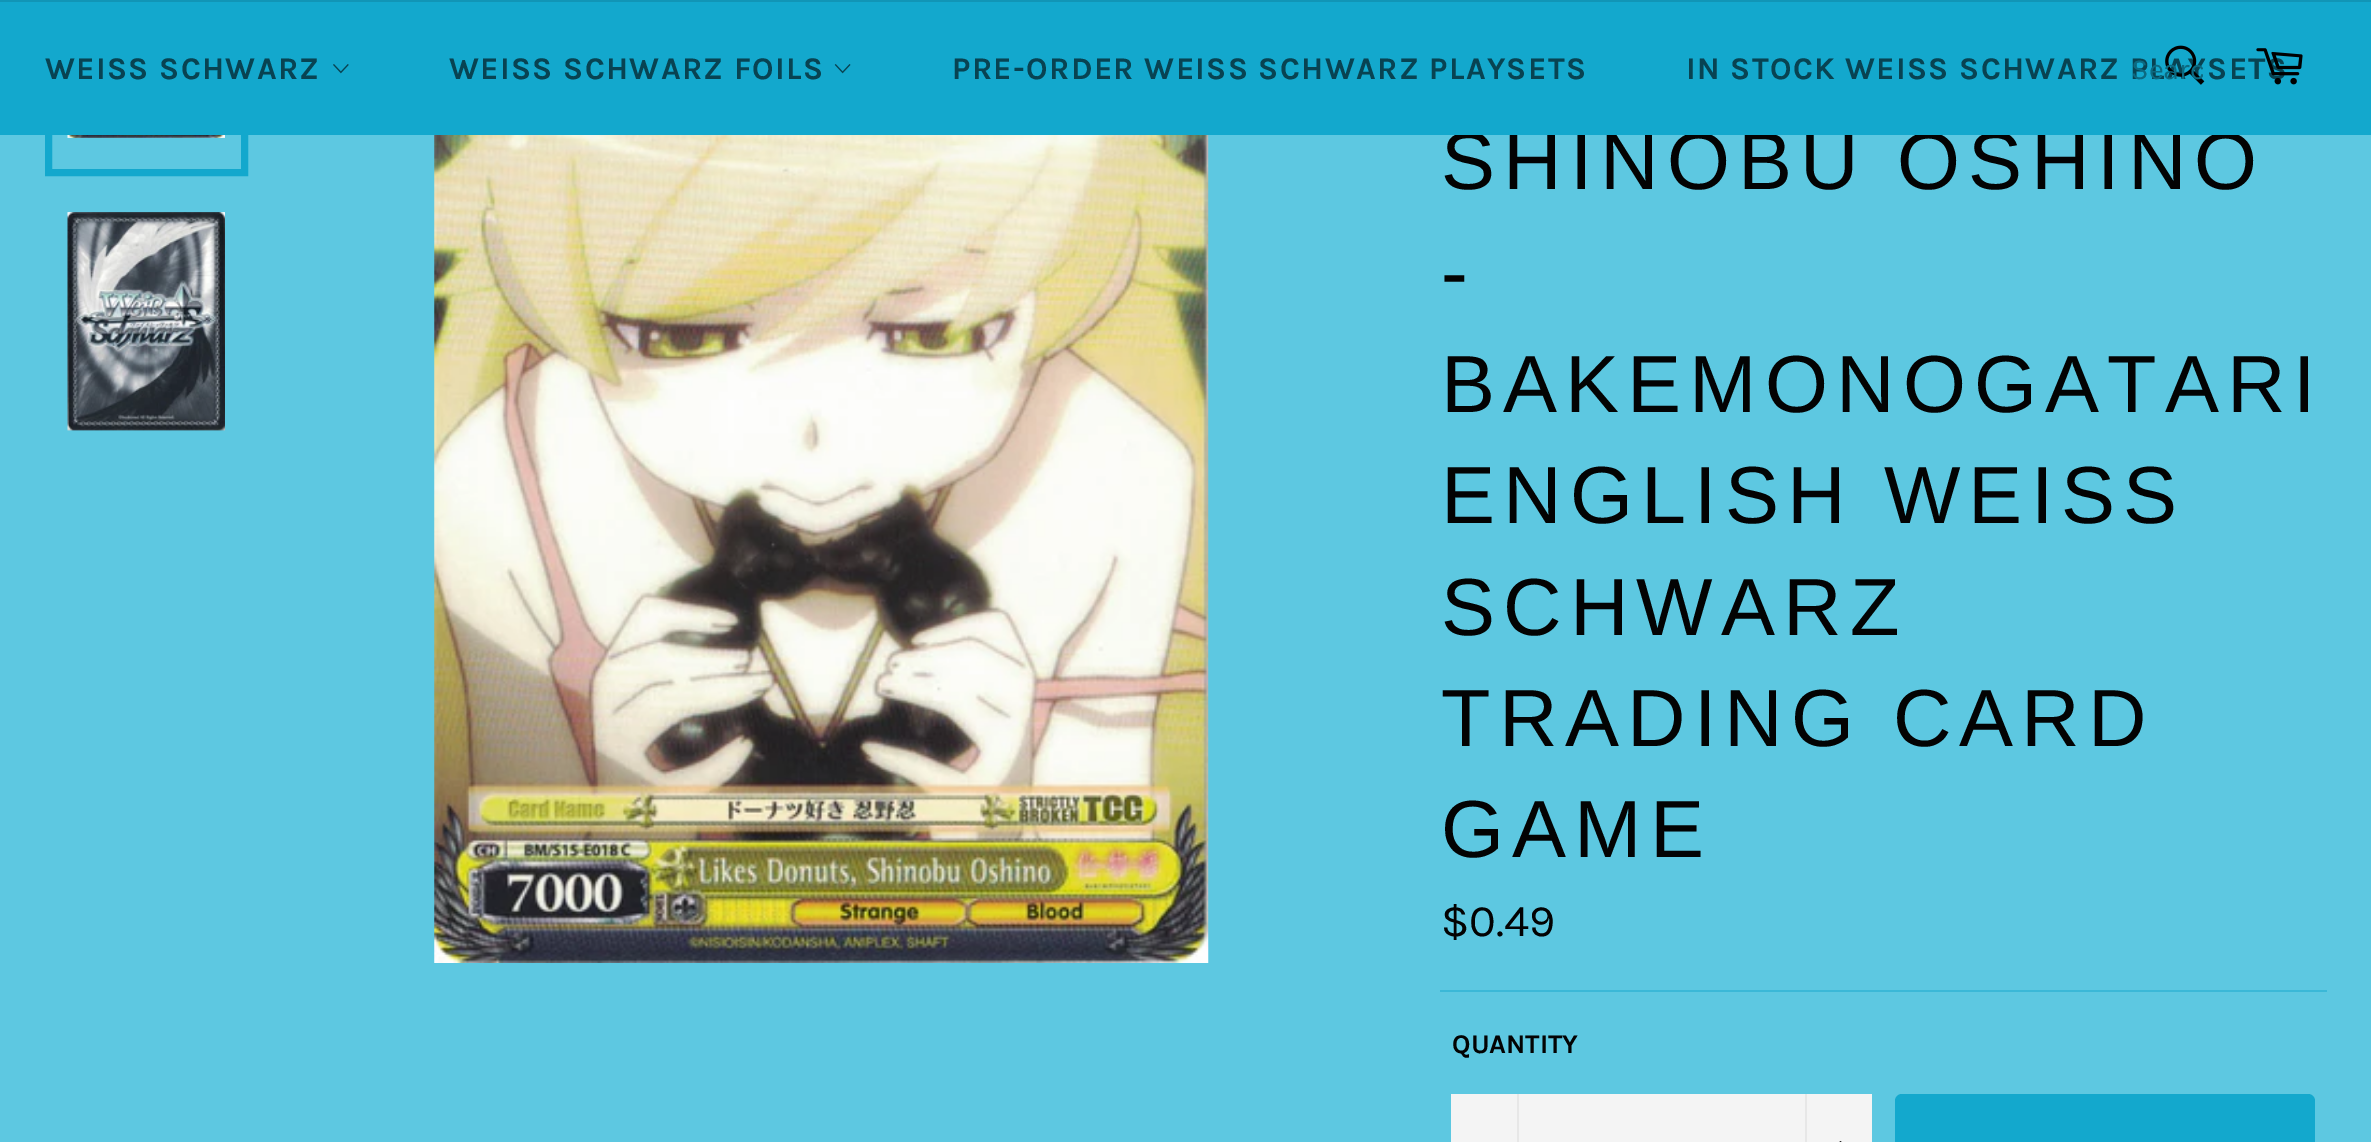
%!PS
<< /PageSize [2371 1142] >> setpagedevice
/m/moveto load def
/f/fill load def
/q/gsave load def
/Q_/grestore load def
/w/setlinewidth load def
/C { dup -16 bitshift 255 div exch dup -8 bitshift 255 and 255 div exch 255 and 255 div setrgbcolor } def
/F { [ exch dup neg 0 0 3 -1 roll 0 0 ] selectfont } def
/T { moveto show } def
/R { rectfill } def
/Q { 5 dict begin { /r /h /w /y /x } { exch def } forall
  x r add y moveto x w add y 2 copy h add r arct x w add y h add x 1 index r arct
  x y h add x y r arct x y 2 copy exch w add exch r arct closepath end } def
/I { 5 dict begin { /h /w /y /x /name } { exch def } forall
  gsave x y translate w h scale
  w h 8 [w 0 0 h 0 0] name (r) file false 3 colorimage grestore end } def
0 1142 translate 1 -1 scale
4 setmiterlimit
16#5DC8E1 C
0 0 2371 1142 R
(5.rgb) 67 135 158 3 I
16#13A8CD C
7 w
48.5 -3.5 196 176 rectstroke
/Arimo-Regular 81 F
16#030303 C
1441 189 m 8.1 0 (SHINOBU OSHINO) ashow
16#13A8CD C
0 2 2371 133 R
16#1195B6 C
0 0 2371 2 R
/Karla-Bold 31.5 F
16#084352 C
45 79 m 1.35 0 (WEISS SCHWARZ) ashow
(1.rgb) 333 64 16 10 I
449 79 m 1.35 0 (WEISS SCHWARZ FOILS) ashow
(2.rgb) 834 64 17 10 I
952 79 m 1.35 0 (PRE-ORDER WEISS SCHWARZ PLAYSETS) ashow
1686 79 m 1.35 0 (IN STOCK WEISS SCHWARZ PLAYSETS) ashow
(3.rgb) 2165 45 40 40 I
q
2131 52 72 34 rectclip
/Karla-Regular 29 F
16#0C6A81 C
(Searc) 2131 79 T
Q_
(4.rgb) 2256 48 47 37 I
(6.rgb) 67 212 158 219 I
(7.rgb) 434 135 775 828 I
/Arimo-Regular 81 F
16#030303 C
1441 300 m 8.1 0 (-) ashow
1441 412 m 8.1 0 (BAKEMONOGATARI) ashow
1441 523 m 8.1 0 (ENGLISH WEISS) ashow
1441 635 m 8.1 0 (SCHWARZ) ashow
1441 746 m 8.1 0 (TRADING CARD) ashow
1441 857 m 8.1 0 (GAME) ashow
/Karla-Regular 45 F
($0.49) 1441 936 T
16#3BB8D7 C
1440 990 887 2 R
/Karla-Bold 27 F
16#030303 C
(QUANTITY) 1452 1053 T
16#F4F4F4 C
1451 1094 421 48 R
16#E7E7E7 C
1517 1094 2 48 R
1805 1094 2 48 R
(8.rgb) 1839 1141 3 1 I
16#13A8CD C
1895 1094 420 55 7 Q f
showpage
